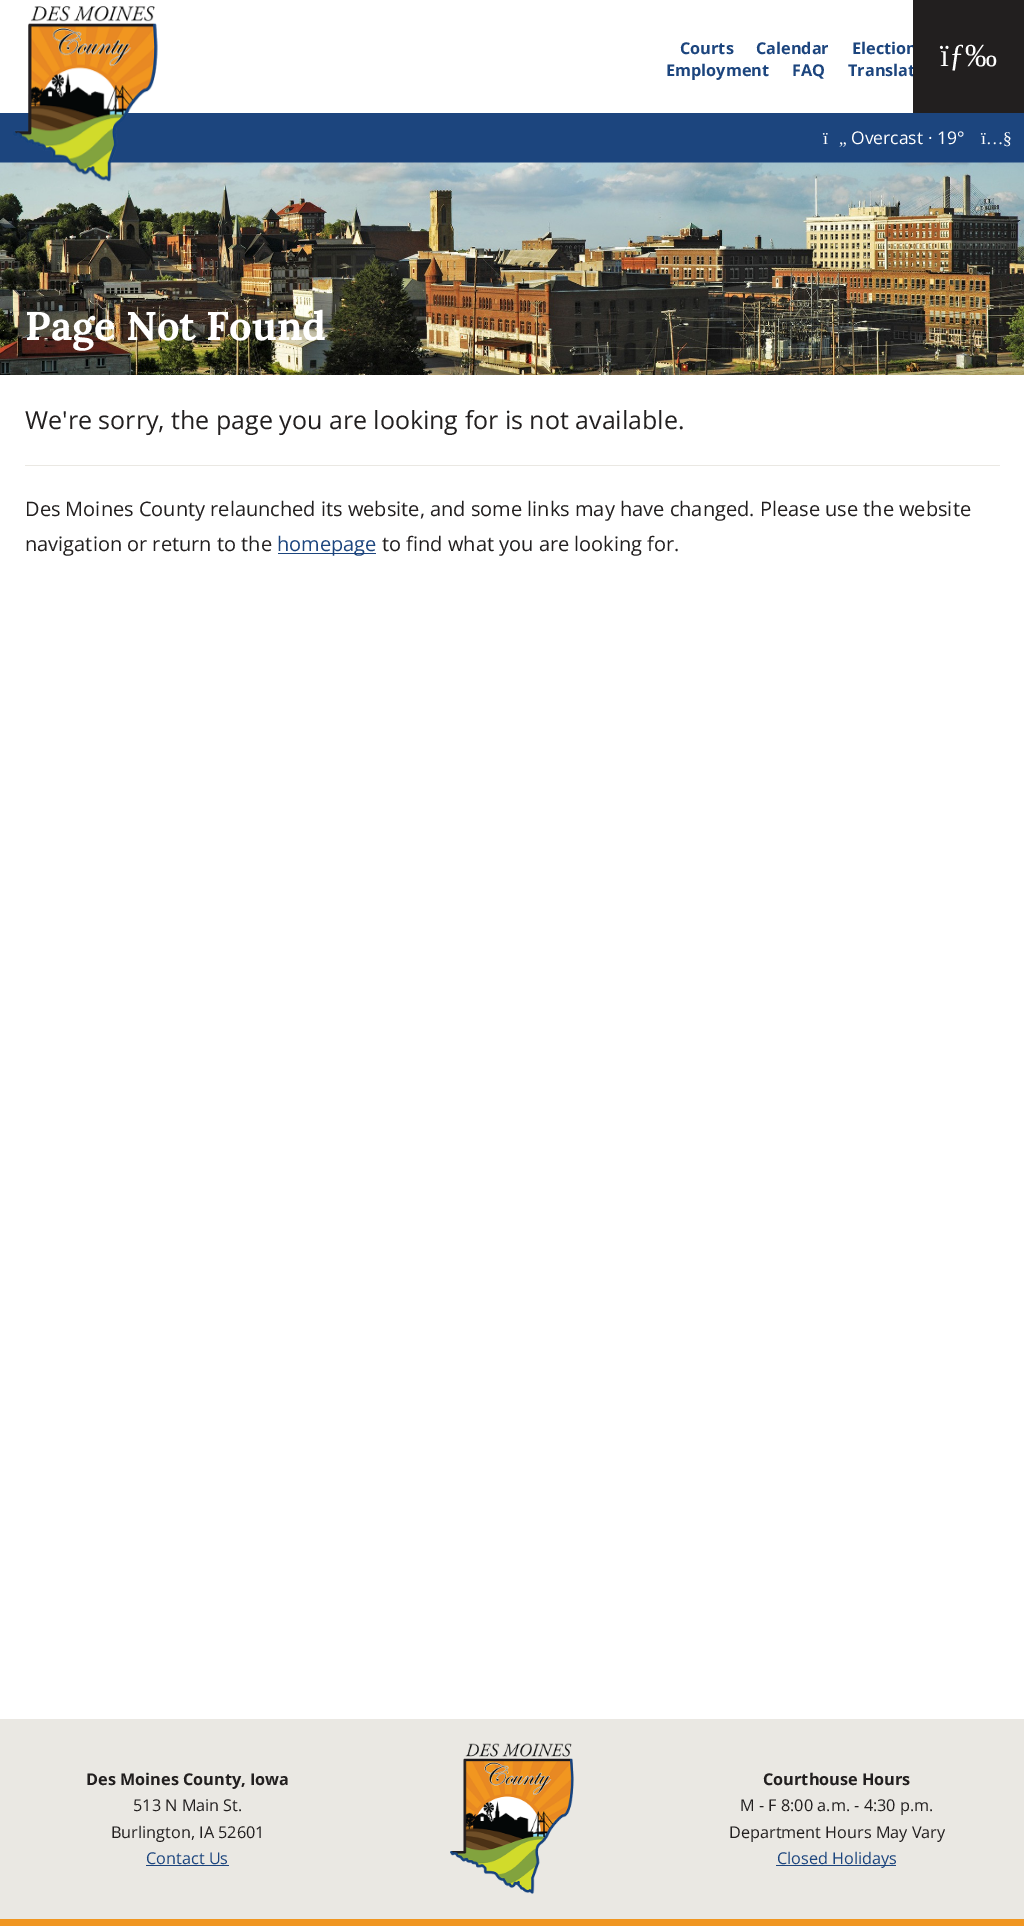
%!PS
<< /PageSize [1024 1926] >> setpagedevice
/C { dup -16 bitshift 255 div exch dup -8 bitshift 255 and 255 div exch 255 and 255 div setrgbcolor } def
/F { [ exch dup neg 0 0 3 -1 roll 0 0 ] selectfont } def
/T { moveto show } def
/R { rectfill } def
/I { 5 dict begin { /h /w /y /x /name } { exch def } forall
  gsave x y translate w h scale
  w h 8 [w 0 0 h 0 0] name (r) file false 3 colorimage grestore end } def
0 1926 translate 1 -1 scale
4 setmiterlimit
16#FFFFFF C
0 0 1024 1926 R
16#1C457E C
0 113 1024 50 R
(2.rgb) 0 162 1024 213 I
(1.rgb) 13 6 145 176 I
/OpenSans-Bold 16.25 F
(Courts) 680 54 T
(Calendar) 756 54 T
(Election) 852 54 T
(Employment) 666 76 T
(FAQ) 792 76 T
(Translat) 848 76 T
16#221F1F C
913 0 111 113 R
/LiberationSerif-Regular 32 F
16#FFFFFF C
(ïƒ‰) 940 66 T
/LiberationSerif-Regular 17.5 F
(ï) 823 144 T
(„) 839 144 T
/OpenSans-Regular 17.5 F
(Overcast · 19°) 851 144 T
/LiberationSerif-Regular 17.5 F
(ï…§) 981 144 T
/Lora-Bold 40 F
(Page Not Found) 25 340 T
16#EAE8E3 C
25 465 975 1 R
/OpenSans-Regular 25 F
16#221F1F C
(We're sorry, the page you are looking for is not available.) 25 429 T
/OpenSans-Regular 20 F
(Des Moines County relaunched its website, and some links may have changed. Please use the website) 25 516 T
(navigation or return to the) 25 551 T
16#1C457E C
278 553 98 1 R
(homepage) 277 551 T
16#221F1F C
(to find what you are looking for.) 382 551 T
16#EAE8E3 C
0 1719 1024 200 R
/OpenSans-Bold 16.25 F
16#221F1F C
(Des Moines County, Iowa) 86 1785 T
/OpenSans-Regular 16.25 F
(513 N Main St.) 133 1811 T
(Burlington, IA 52601) 111 1838 T
16#1C457E C
(Contact Us) 146 1864 T
146 1865 83 1 R
(3.rgb) 450 1743 124 151 I
/OpenSans-Bold 16.25 F
16#221F1F C
(Courthouse Hours) 763 1785 T
/OpenSans-Regular 16.25 F
(M - F 8:00 a.m. - 4:30 p.m.) 740 1811 T
(Department Hours May Vary) 729 1838 T
16#1C457E C
776 1865 120 1 R
(Closed Holidays) 777 1864 T
16#F09621 C
0 1919 1024 7 R
showpage
